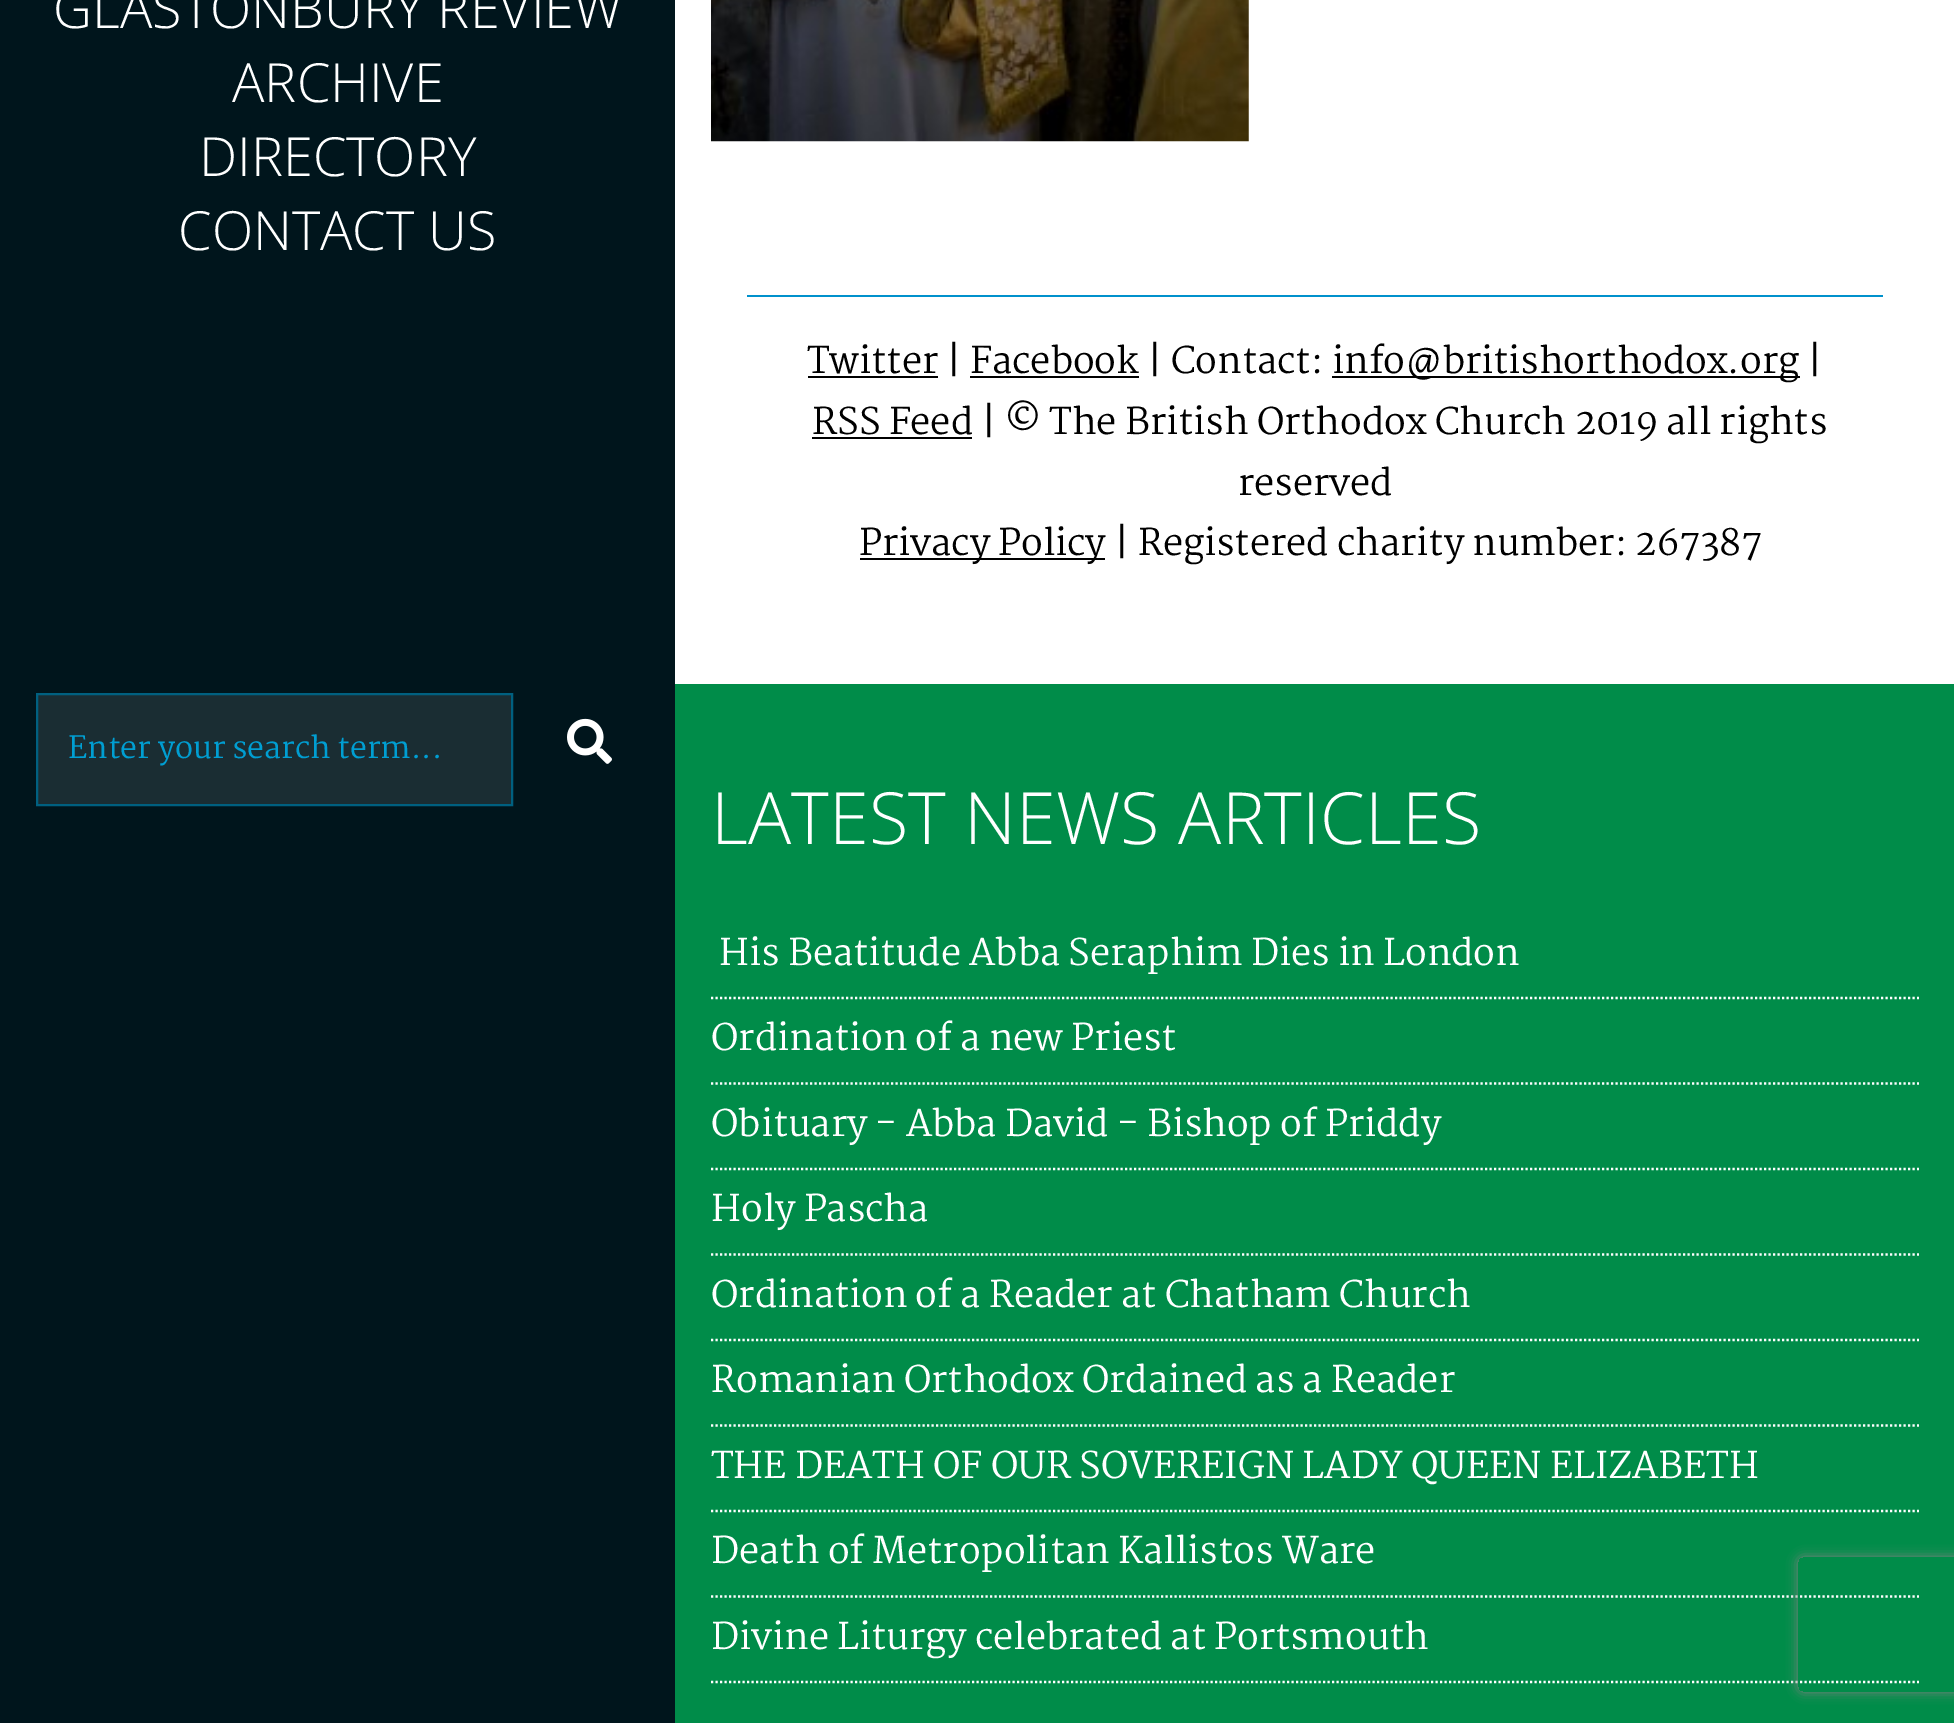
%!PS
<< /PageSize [1954 1723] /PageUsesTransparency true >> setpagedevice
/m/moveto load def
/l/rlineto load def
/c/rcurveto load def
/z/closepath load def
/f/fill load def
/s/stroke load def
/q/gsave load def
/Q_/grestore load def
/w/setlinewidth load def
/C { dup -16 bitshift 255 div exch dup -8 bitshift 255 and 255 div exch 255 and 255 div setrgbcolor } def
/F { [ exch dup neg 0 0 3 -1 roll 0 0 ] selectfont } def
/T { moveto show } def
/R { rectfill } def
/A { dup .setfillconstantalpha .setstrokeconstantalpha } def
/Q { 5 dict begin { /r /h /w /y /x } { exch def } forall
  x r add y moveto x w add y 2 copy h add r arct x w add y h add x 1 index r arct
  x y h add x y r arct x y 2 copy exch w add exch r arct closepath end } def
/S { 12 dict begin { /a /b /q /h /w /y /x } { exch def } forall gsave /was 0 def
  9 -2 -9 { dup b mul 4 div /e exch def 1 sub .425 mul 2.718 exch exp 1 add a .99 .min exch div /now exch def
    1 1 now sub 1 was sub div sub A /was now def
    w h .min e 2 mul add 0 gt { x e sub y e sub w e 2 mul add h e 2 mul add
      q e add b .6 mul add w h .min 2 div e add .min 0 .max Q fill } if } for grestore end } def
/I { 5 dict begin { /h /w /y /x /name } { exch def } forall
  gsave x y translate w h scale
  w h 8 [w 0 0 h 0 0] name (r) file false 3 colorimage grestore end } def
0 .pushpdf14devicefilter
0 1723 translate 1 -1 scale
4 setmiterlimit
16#FFFFFF C
0 0 1954 1723 R
16#00151C C
0 0 675 1723 R
/OpenSans-Light 54 F
16#FFFFFF C
(GLASTONBURY REVIEW) 53 28 T
(ARCHIVE) 232 102 T
(DIRECTORY) 199 176 T
(CONTACT US) 178 250 T
16#1A2D33 C
37 694 m 475 0 l 0 111 l -475 0 l z q f Q_
16#006080 C
2 w
s
/Martel-Regular 30 F
16#009ED2 C
(Enter your search term...) 68 758 T
(1.rgb) 567 718 45 46 I
(2.rgb) 711 0 538 142 I
16#0091CC C
747 295 1136 2 R
16#000000 C
808 376 130 2 R
/Martel-Regular 36 F
(Twitter | Facebook | Contact:) 807 373 T
1332 376 468 2 R
(info@britishorthodox.org |) 1332 373 T
970 376 169 2 R
812 437 160 2 R
(RSS Feed | © The British Orthodox Church 2019 all rights) 812 434 T
(reserved) 1238 495 T
860 558 245 2 R
(Privacy Policy | Registered charity number: 267387) 859 555 T
16#008C49 C
675 684 1279 1039 R
/OpenSans-Light 72 F
16#FFFFFF C
(LATEST NEWS ARTICLES) 711 844 T
2.2 w
[2.25 2.25] 0 setdash
711 998 m 1208 0 l s
/Martel-Regular 36 F
(His Beatitude Abba Seraphim Dies in London) 719 965 T
711 1083.5 m 1208 0 l s
(Ordination of a new Priest) 711 1050 T
711 1169 m 1208 0 l s
(Obituary - Abba David - Bishop of Priddy) 711 1136 T
711 1254.5 m 1208 0 l s
(Holy Pascha) 711 1221 T
711 1340 m 1208 0 l s
(Ordination of a Reader at Chatham Church) 711 1307 T
711 1425.5 m 1208 0 l s
(Romanian Orthodox Ordained as a Reader) 711 1392 T
711 1511 m 1208 0 l s
(THE DEATH OF OUR SOVEREIGN LADY QUEEN ELIZABETH) 711 1478 T
711 1596.5 m 1208 0 l s
(Death of Metropolitan Kallistos Ware) 711 1563 T
711 1682 m 1208 0 l s
(Divine Liturgy celebrated at Portsmouth) 711 1649 T
q
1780 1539 m 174 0 l 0 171 l -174 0 l z 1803 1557 m 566 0 l 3 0 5 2 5 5 c 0 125 l 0 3 -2 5 -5 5 c -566 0 l -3 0 -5 -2 -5 -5 c 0 -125 l 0 -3 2 -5 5 -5 c z eoclip newpath
16#808080 C
1798 1557 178 135 5 5.5 1 S
Q_
.poppdf14devicefilter showpage
